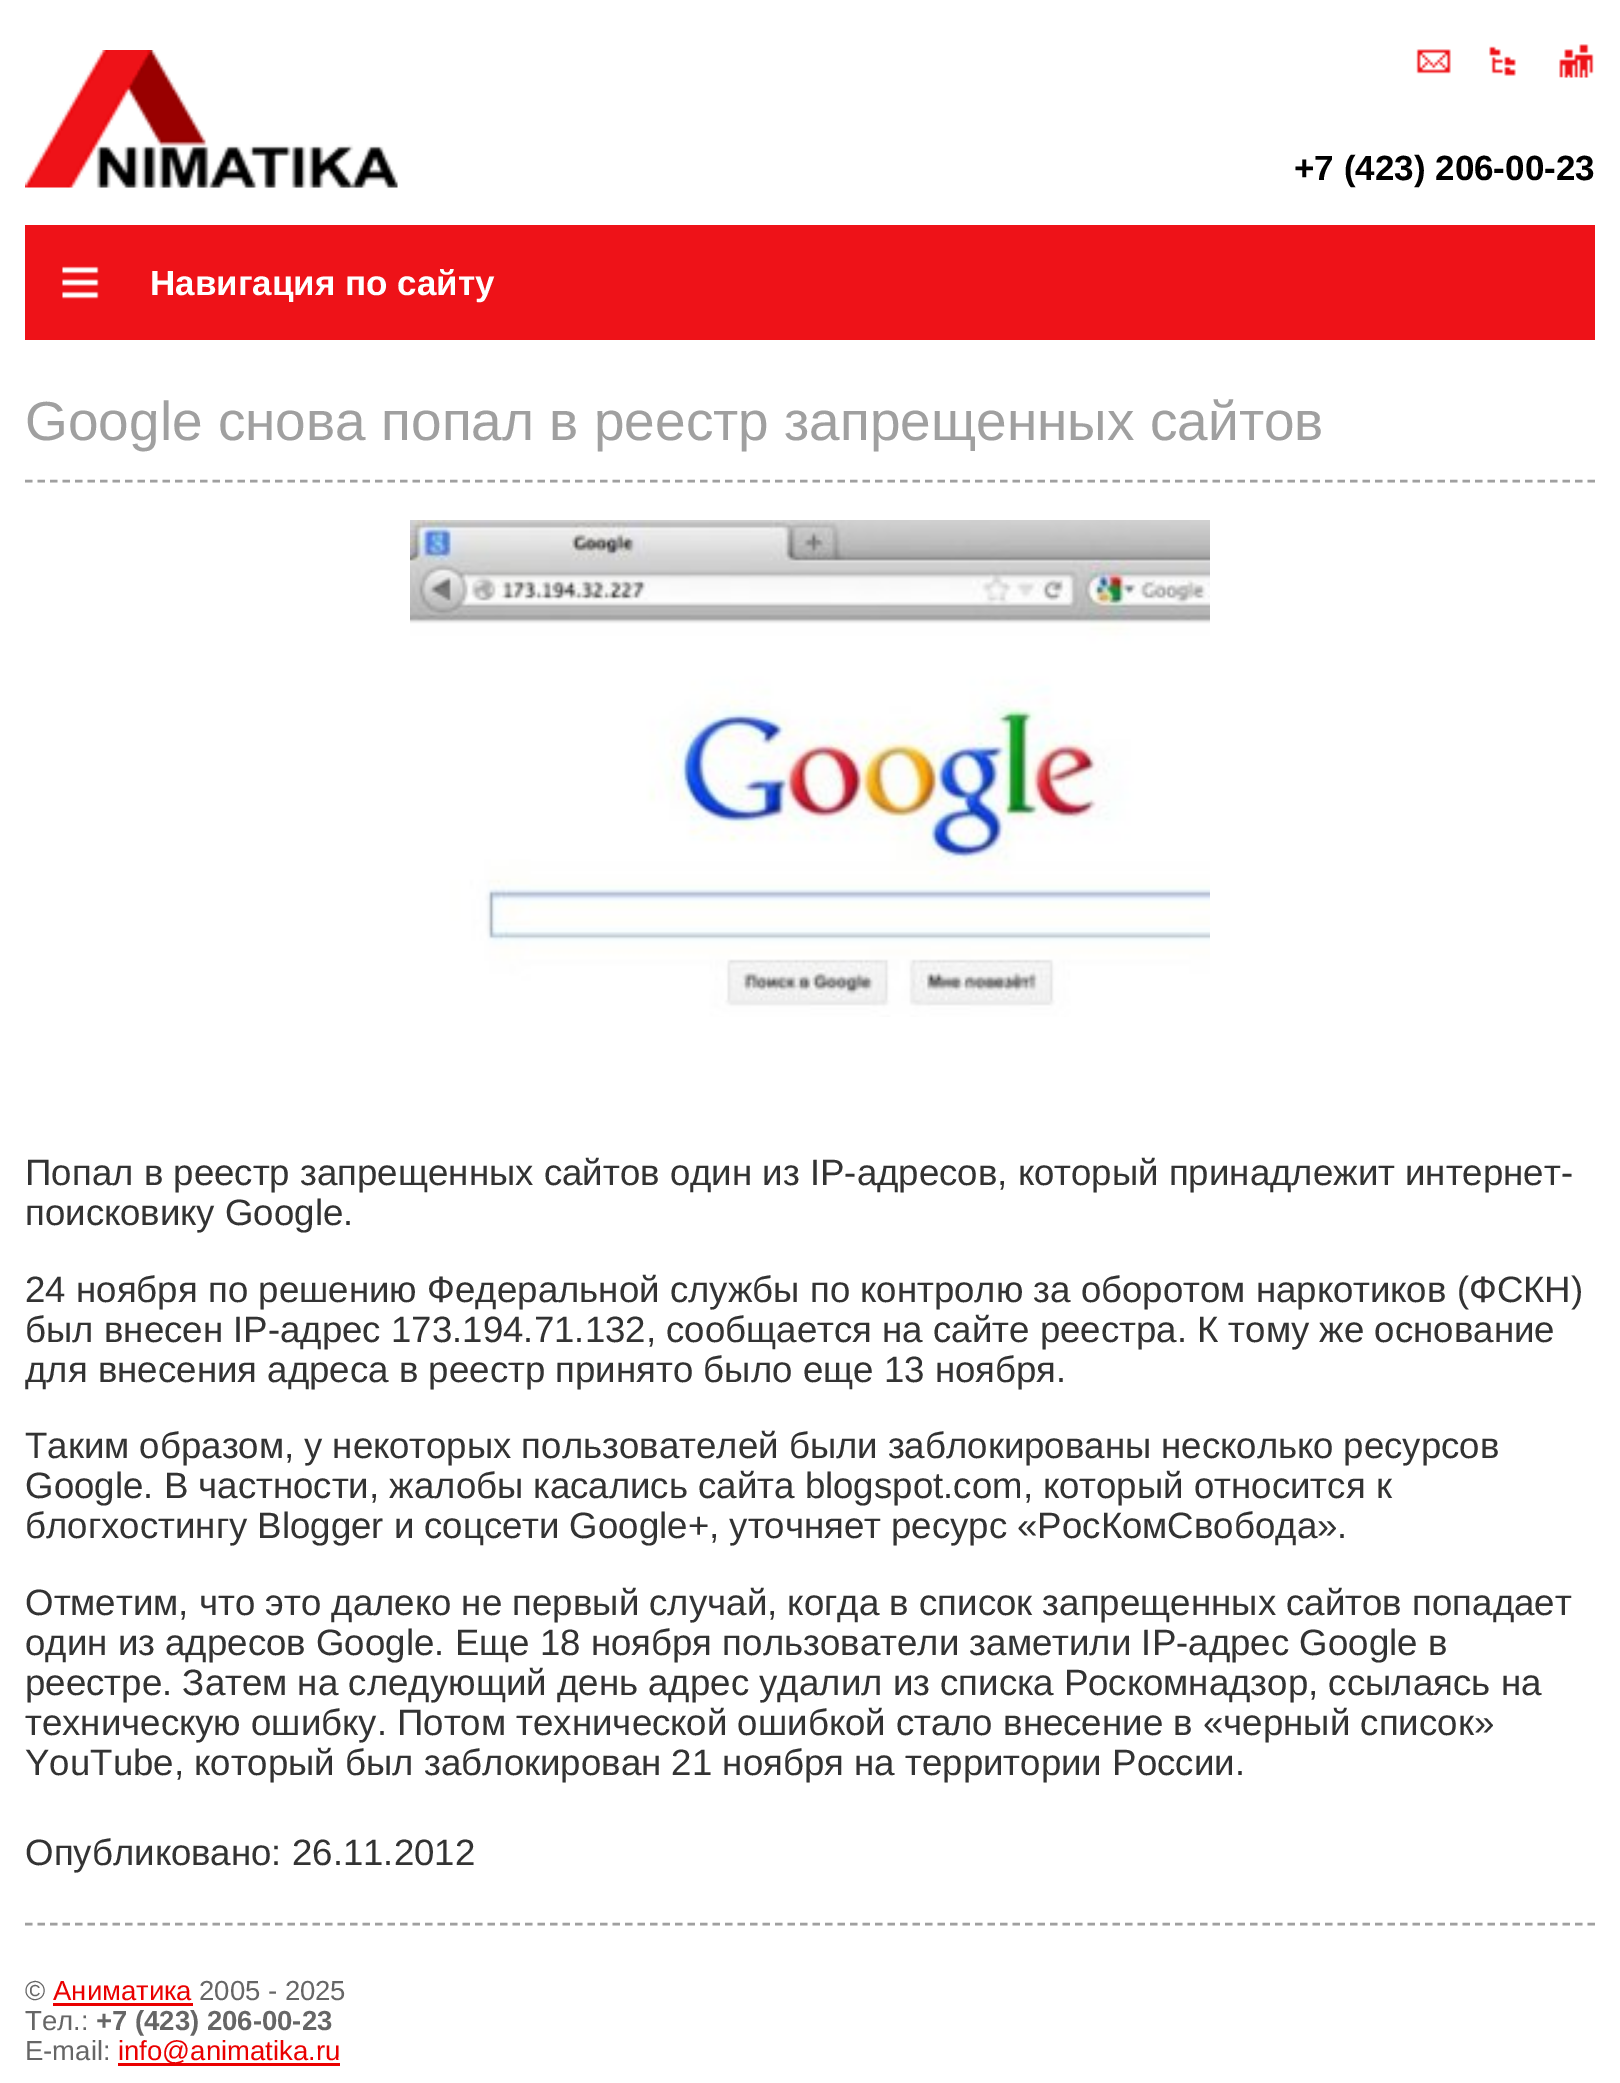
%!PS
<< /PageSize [1620 2083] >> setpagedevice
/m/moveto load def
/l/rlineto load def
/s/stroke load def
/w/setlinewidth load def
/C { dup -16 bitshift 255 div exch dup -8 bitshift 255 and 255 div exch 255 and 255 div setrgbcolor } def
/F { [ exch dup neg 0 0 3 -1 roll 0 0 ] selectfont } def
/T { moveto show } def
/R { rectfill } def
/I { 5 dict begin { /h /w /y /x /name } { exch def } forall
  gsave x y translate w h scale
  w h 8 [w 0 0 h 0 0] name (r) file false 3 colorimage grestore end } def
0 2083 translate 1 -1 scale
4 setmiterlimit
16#FFFFFF C
0 0 1620 2083 R
(1.rgb) 25 50 373 138 I
(2.rgb) 1416 49 35 25 I
(3.rgb) 1489 46 27 30 I
(4.rgb) 1559 44 35 34 I
/LiberationSans-Bold 35 F
16#000000 C
(+7 \(423\) 206-00-23) 1294 180 T
16#EE1218 C
25 225 1570 115 R
(5.rgb) 62 266 37 33 I
16#FFFFFF C
(Навигация по сайту) 150 295 T
16#A0A0A0 C
2.5 w
[7.5 5] 0 setdash
25 481 m 1570 0 l s
/LiberationSans-Regular 55 F
(Google снова попал в реестр запрещенных сайтов) 25 440 T
(6.rgb) 410 520 800 497 I
/LiberationSans-Regular 36.65 F
16#333333 C
(Попал в реестр запрещенных сайтов один из IP-адресов, который принадлежит интернет-) 25 1185 T
(поисковику Google.) 25 1225 T
(24 ноября по решению Федеральной службы по контролю за оборотом наркотиков \(ФСКН\)) 25 1302 T
(был внесен IP-адрес 173.194.71.132, сообщается на сайте реестра. К тому же основание) 25 1342 T
(для внесения адреса в реестр принято было еще 13 ноября.) 25 1382 T
25 1458 m -.25 0 32 (Таким образом, у некоторых пользователей были заблокированы несколько ресурсов) widthshow
(Google. В частности, жалобы касались сайта blogspot.com, который относится к) 25 1498 T
25 1538 m -.25 0 32 (блогхостингу Blogger и соцсети Google+, уточняет ресурс «РосКомСвобода».) widthshow
(Отметим, что это далеко не первый случай, когда в список запрещенных сайтов попадает) 25 1615 T
(один из адресов Google. Еще 18 ноября пользователи заметили IP-адрес Google в) 25 1655 T
(реестре. Затем на следующий день адрес удалил из списка Роскомнадзор, ссылаясь на) 25 1695 T
(техническую ошибку. Потом технической ошибкой стало внесение в «черный список») 25 1735 T
(YouTube, который был заблокирован 21 ноября на территории России.) 25 1775 T
(Опубликовано: 26.11.2012) 25 1865 T
16#A0A0A0 C
25 1924 m 1570 0 l s
/LiberationSans-Regular 27.5 F
16#666666 C
(©) 25 2000 T
16#EA0000 C
(Аниматика) 53 2000 T
53 2003 140 3 R
16#666666 C
(2005 - 2025) 199 2000 T
(Тел.:) 25 2030 T
/LiberationSans-Bold 27.5 F
(+7 \(423\) 206-00-23) 96 2030 T
/LiberationSans-Regular 27.5 F
(E-mail:) 25 2060 T
16#EA0000 C
118 2063 222 3 R
(info@animatika.ru) 118 2060 T
showpage
